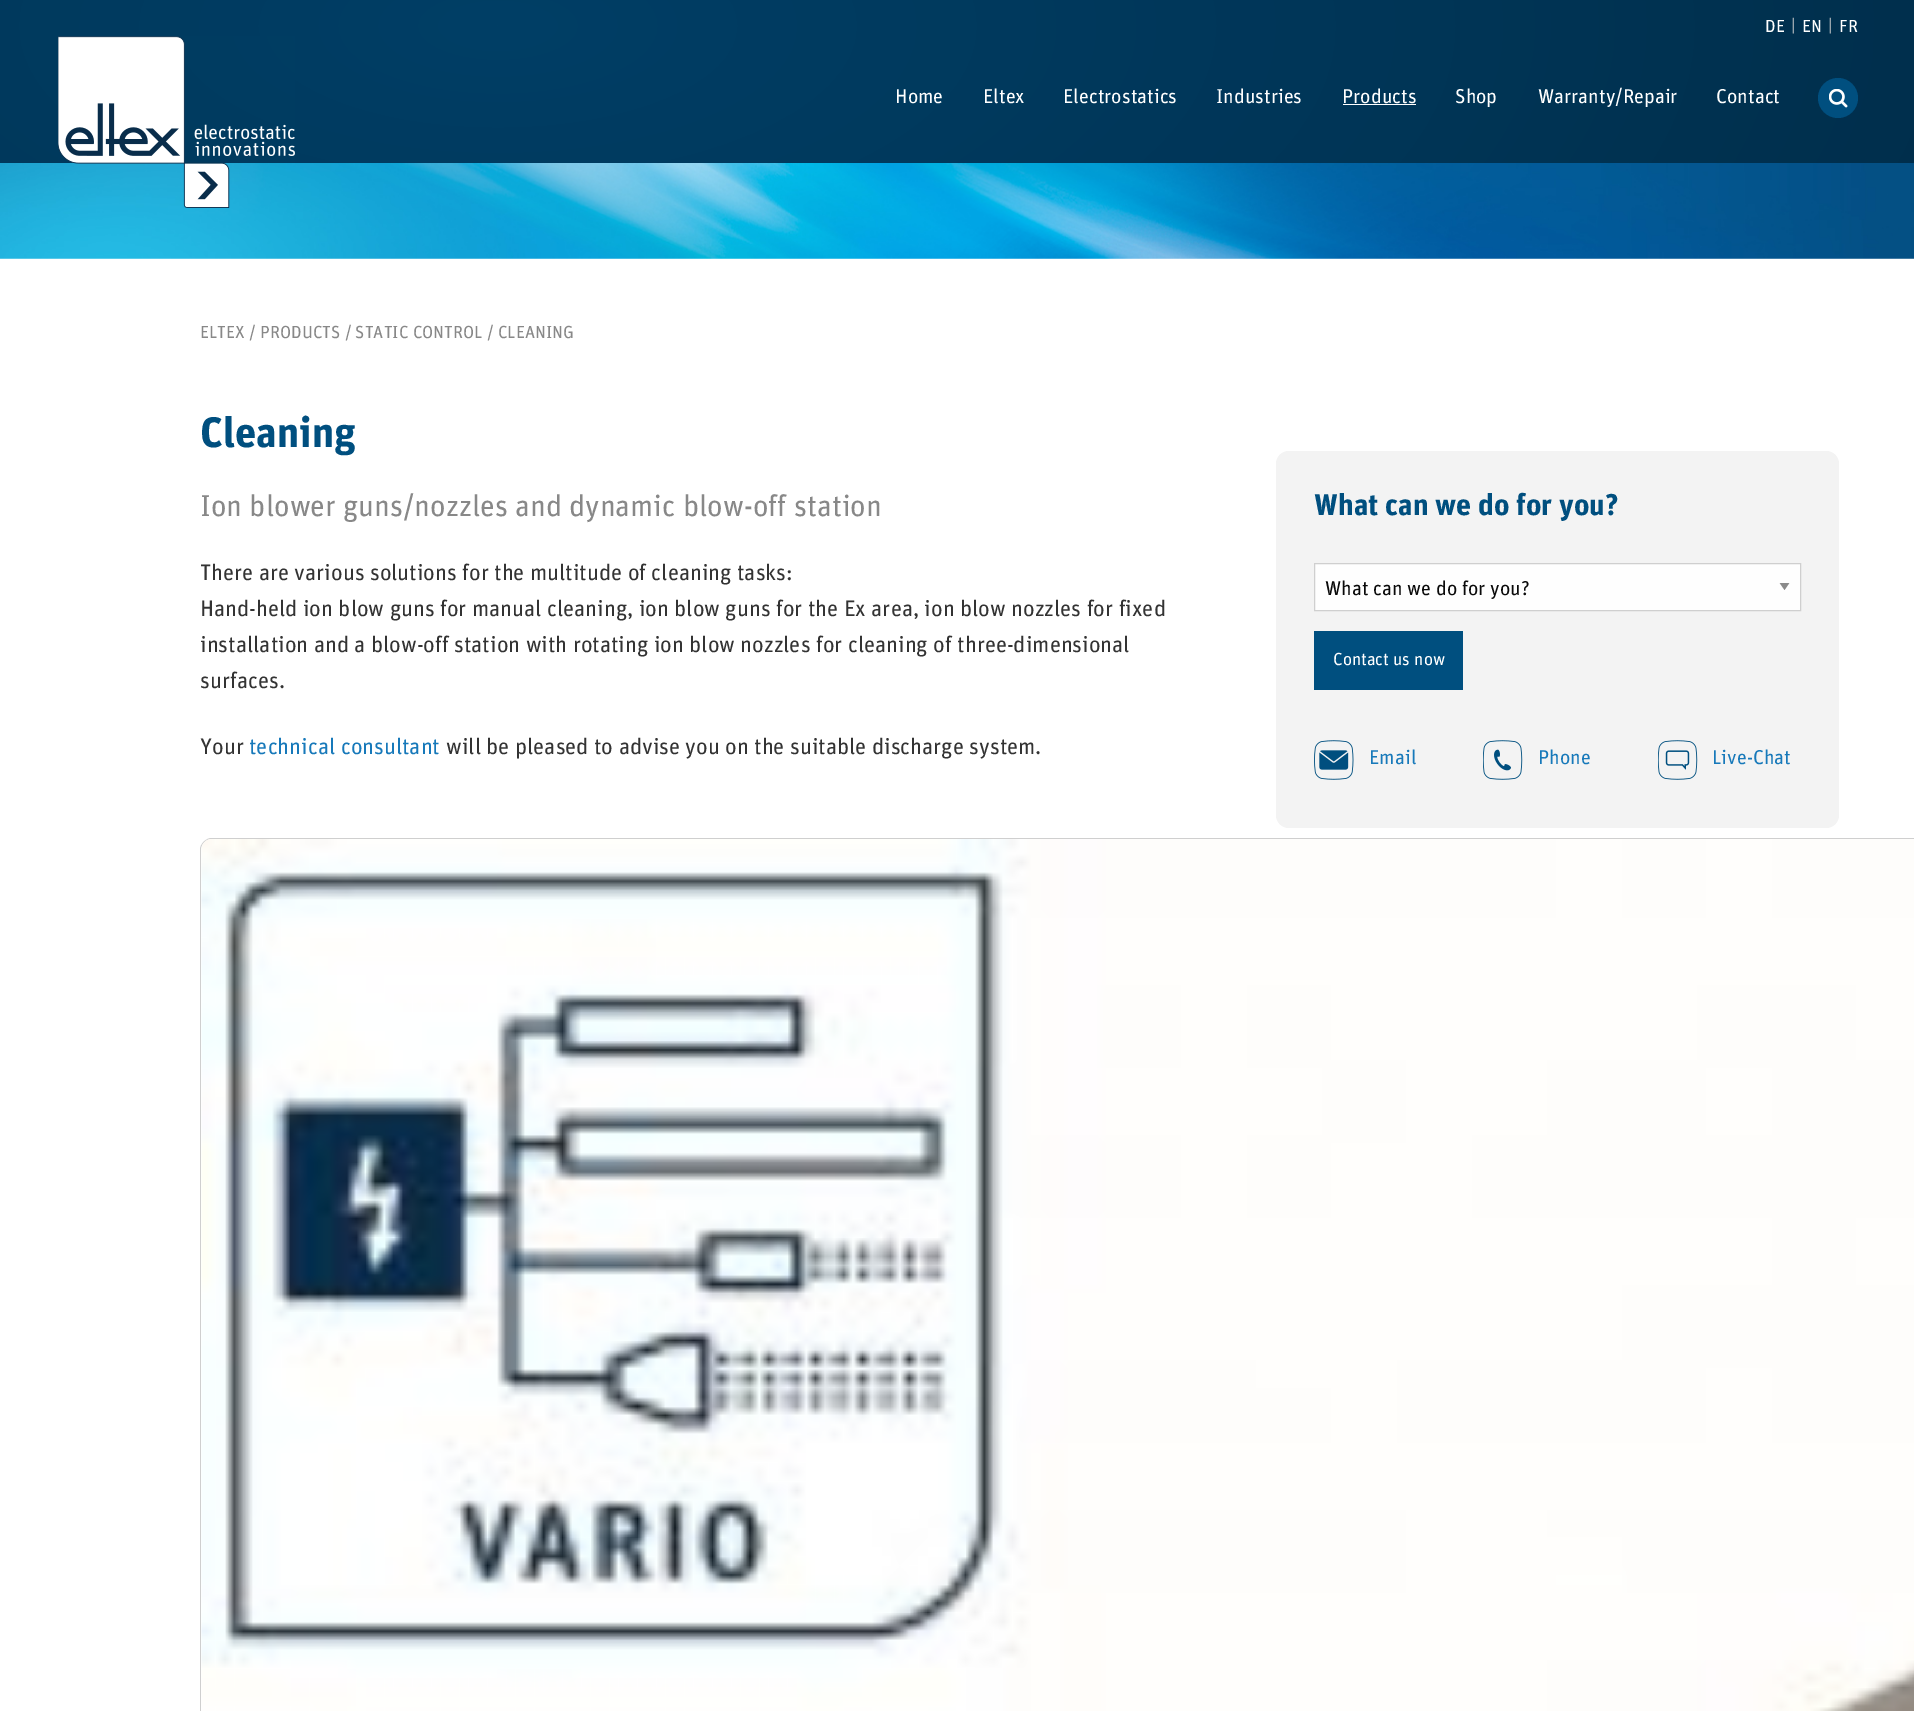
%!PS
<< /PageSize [1914 1711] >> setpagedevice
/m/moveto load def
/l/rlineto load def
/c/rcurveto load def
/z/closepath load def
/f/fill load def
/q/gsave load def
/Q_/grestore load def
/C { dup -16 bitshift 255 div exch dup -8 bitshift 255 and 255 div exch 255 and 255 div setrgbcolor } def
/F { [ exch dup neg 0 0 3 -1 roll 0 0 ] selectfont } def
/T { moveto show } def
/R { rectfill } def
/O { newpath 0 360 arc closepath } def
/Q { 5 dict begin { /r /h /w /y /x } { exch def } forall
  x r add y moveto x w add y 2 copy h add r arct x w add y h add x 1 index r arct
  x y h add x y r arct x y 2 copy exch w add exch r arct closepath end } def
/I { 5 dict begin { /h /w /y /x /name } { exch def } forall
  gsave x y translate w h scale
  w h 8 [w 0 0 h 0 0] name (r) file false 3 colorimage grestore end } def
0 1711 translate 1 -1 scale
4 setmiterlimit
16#FFFFFF C
0 0 1914 1711 R
q 0 0 m 1914 0 l 0 163 l -1914 0 l z clip newpath 498 26 translate 1915 813 scale
<< /ShadingType 3 /ColorSpace /DeviceRGB /Coords [0 0 0 0 0 1] /Extend [true true] /Function << /FunctionType 2 /Domain [0 1] /C0 [0 .247 .4] /C1 [0 .165 .271] /N 1 >> >> shfill Q_
(3.rgb) 0 163 1914 96 I
(1.rgb) 58 36 237 172 I
/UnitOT-Regular 17.5 F
(DE) 1765 32 T
16#CFCFCF C
(|) 1791 31 T
16#FFFFFF C
(EN) 1802 32 T
16#CFCFCF C
(|) 1828 31 T
16#FFFFFF C
(FR) 1839 32 T
/UnitOT-Regular 20 F
(Home) 895 103 T
(Eltex) 983 103 T
(Electrostatics) 1063 103 T
(Industries) 1216 103 T
(Products) 1342 103 T
1343 104 73 1 R
(Shop) 1455 103 T
(Warranty/Repair) 1538 103 T
(Contact) 1716 103 T
16#004F7F C
1838 98 20 O f
(2.rgb) 1829 89 19 19 I
/UnitOT-Regular 17.5 F
16#888888 C
(ELTEX / PRODUCTS / STATIC CONTROL / CLEANING) 200 338 T
/UnitOT-Bold 42.5 F
16#004F7F C
(Cleaning) 200 447 T
/UnitOT-Regular 30 F
16#888888 C
(Ion blower guns/nozzles and dynamic blow-off station) 200 516 T
/UnitOT-Regular 22.5 F
16#333333 C
(There are various solutions for the multitude of cleaning tasks:) 200 580 T
(Hand-held ion blow guns for manual cleaning, ion blow guns for the Ex area, ion blow nozzles for fixed) 200 616 T
(installation and a blow-off station with rotating ion blow nozzles for cleaning of three-dimensional) 200 652 T
(surfaces.) 200 688 T
(Your) 200 754 T
16#1779BA C
(technical consultant) 249 754 T
16#333333 C
(will be pleased to advise you on the suitable discharge system.) 446 754 T
16#CFCFCF C
212 838 m 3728 0 l 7 0 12 5 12 12 c 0 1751 l -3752 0 l 0 -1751 l 0 -7 6 -12 12 -12 c z 212 839 m 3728 0 l 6 0 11 5 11 11 c 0 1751 l -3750 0 l 0 -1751 l 0 -6 5 -11 11 -11 c z eofill
(4.rgb) 201 839 1713 872 I
16#F3F3F3 C
1276 451 563 377 13 Q f
/UnitOT-Bold 30 F
16#004F7F C
(What can we do for you?) 1314 515 T
16#FEFEFE C
1315 564 485 46 R
q
1779 583 11 7 rectclip
16#8A8A8A C
1779.5 582.5 m 10 0 l -5 7.5 l z f
Q_
16#CFCFCF C
1314.5 563.5 486 47 rectstroke
/UnitOT-Regular 20 F
16#0A0A0A C
(What can we do for you?) 1325 595 T
16#004F7F C
1314 631 149 59 R
/UnitOT-Regular 17.5 F
16#FFFFFF C
(Contact us now) 1333 665 T
(5.rgb) 1314 740 40 40 I
/UnitOT-Regular 20 F
16#1779BA C
(Email) 1369 764 T
(6.rgb) 1483 740 40 40 I
(Phone) 1538 764 T
(7.rgb) 1658 740 40 40 I
(Live-Chat) 1712 764 T
showpage
